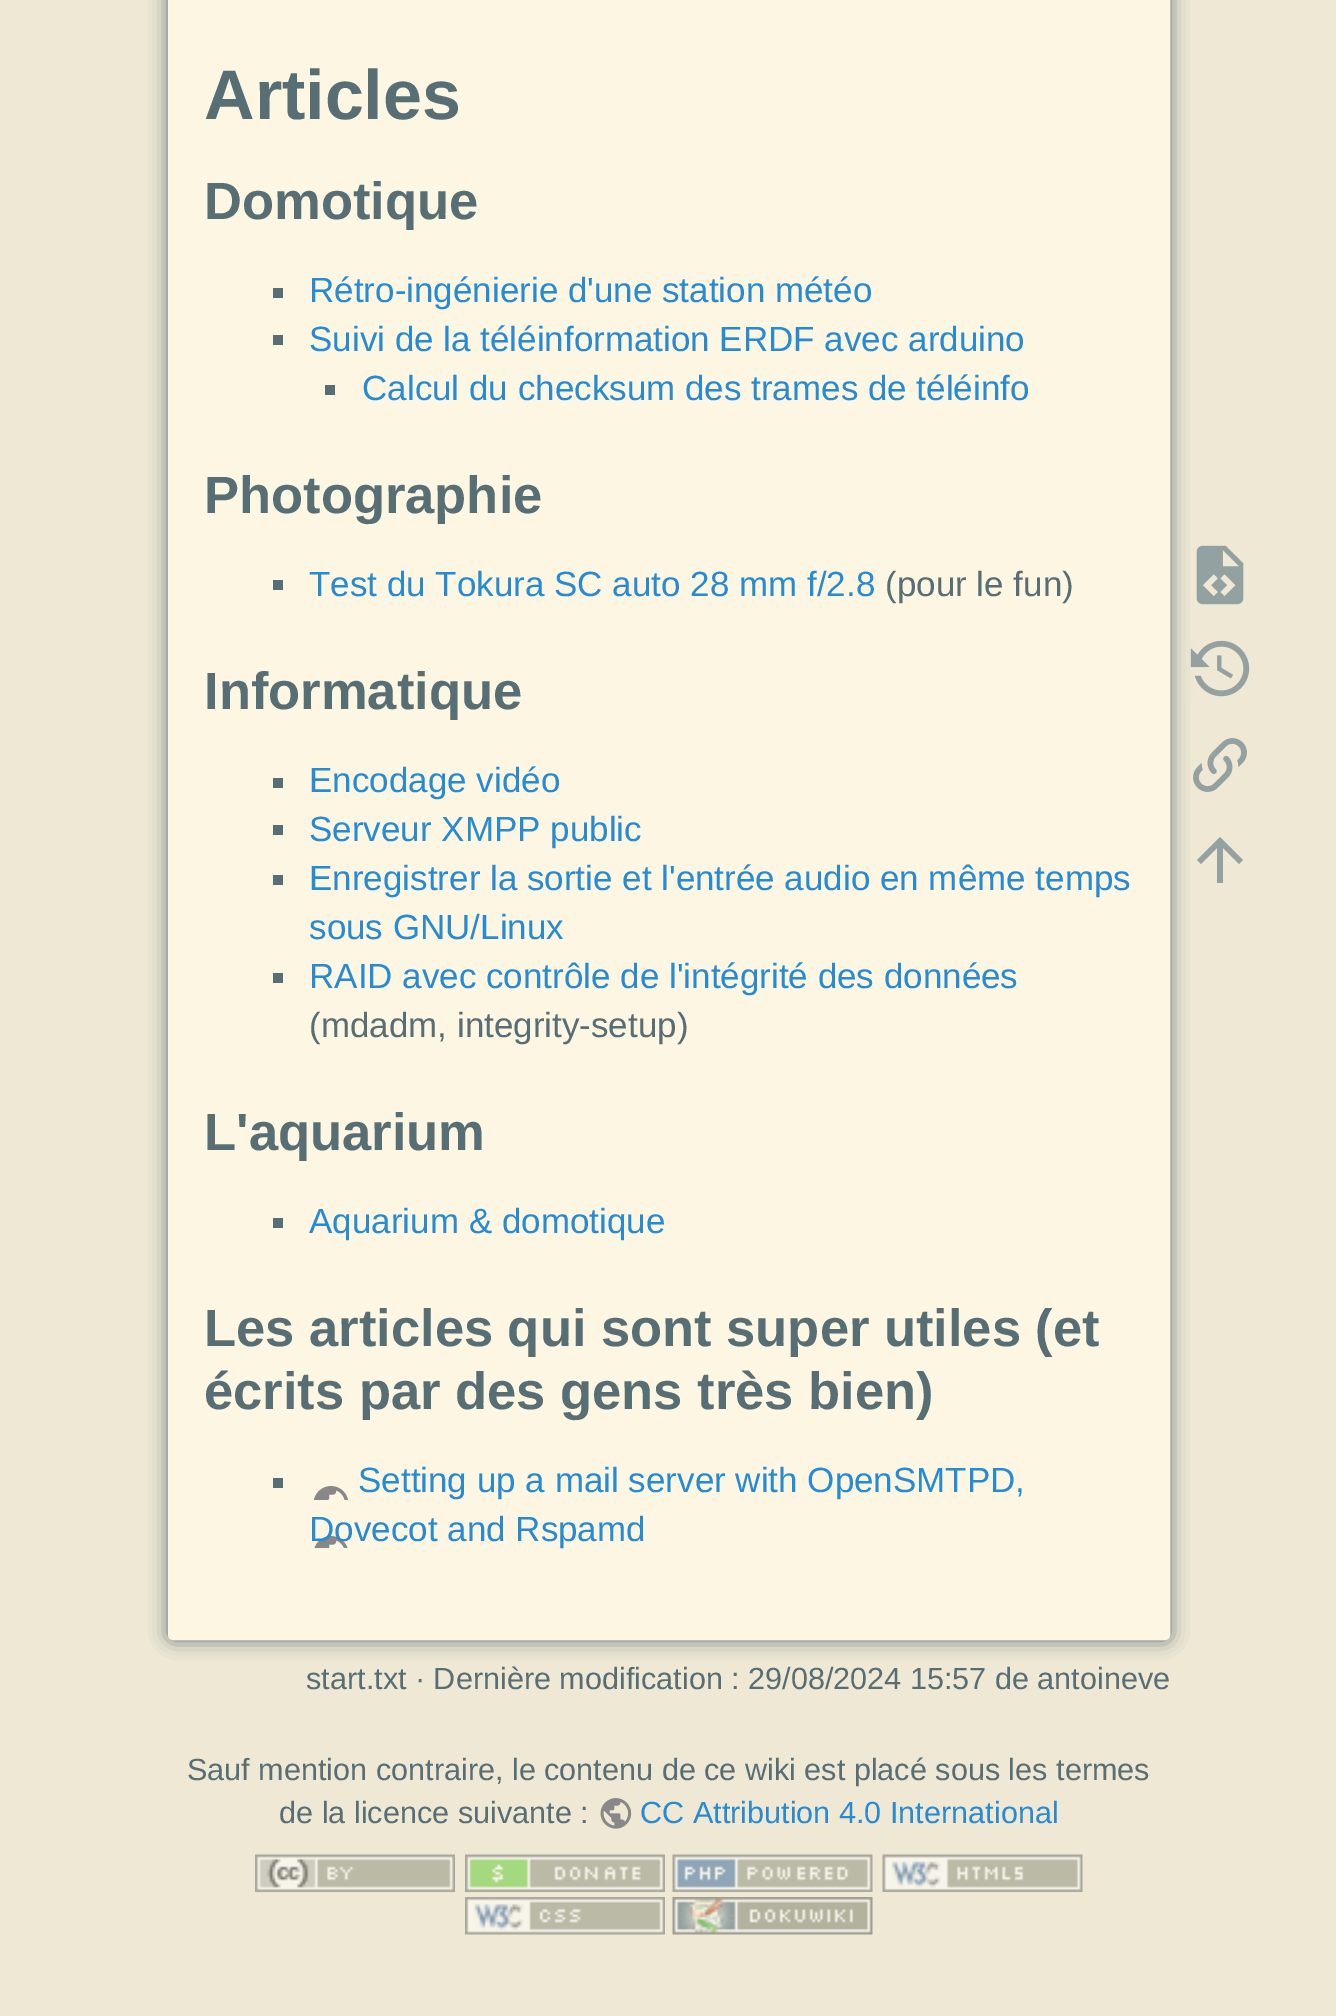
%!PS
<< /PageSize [1336 2016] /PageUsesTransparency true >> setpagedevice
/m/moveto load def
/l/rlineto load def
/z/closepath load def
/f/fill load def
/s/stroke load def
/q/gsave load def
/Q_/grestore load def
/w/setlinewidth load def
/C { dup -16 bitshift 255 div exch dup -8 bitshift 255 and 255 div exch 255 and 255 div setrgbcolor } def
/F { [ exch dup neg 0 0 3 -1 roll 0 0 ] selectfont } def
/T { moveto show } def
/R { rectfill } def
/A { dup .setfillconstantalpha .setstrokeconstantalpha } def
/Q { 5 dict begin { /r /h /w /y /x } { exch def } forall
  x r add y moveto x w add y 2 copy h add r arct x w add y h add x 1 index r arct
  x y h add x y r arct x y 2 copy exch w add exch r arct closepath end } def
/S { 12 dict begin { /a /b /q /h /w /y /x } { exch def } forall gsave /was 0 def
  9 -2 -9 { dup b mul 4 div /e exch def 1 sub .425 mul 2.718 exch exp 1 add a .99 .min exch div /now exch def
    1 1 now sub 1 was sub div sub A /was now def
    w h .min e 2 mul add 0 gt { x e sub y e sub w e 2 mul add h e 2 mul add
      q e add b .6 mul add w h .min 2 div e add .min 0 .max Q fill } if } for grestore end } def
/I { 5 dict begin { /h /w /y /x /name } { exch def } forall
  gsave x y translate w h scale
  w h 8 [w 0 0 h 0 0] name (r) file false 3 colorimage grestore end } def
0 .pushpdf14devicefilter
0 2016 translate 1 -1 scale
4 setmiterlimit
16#EEE8D5 C
0 0 1336 2016 R
16#586E75 C
168 -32 1002 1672 5 9 1 S
16#FDF6E3 C
169.5 -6.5 999 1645 3.5 Q q f Q_
3 w
s
/LiberationSans-Bold 70 F
16#586E75 C
(Articles) 204 119 T
/LiberationSans-Bold 52.5 F
(Domotique) 204 219 T
273 288 10 10 R
/LiberationSans-Regular 35 F
16#268BD2 C
(Rétro-ingénierie d'une station météo) 309 302 T
16#586E75 C
273 335 10 10 R
16#268BD2 C
(Suivi de la téléinformation ERDF avec arduino) 309 351 T
16#586E75 C
325 385 10 10 R
16#268BD2 C
(Calcul du checksum des trames de téléinfo) 362 400 T
/LiberationSans-Bold 52.5 F
16#586E75 C
(Photographie) 204 513 T
273 580 10 10 R
/LiberationSans-Regular 35 F
16#268BD2 C
(Test du Tokura SC auto 28 mm f/2.8) 309 596 T
16#586E75 C
(\(pour le fun\)) 885 596 T
/LiberationSans-Bold 52.5 F
(Informatique) 204 709 T
273 778 10 10 R
/LiberationSans-Regular 35 F
16#268BD2 C
(Encodage vidéo) 309 792 T
16#586E75 C
273 825 10 10 R
16#268BD2 C
(Serveur XMPP public) 309 841 T
16#586E75 C
273 875 10 10 R
16#268BD2 C
(Enregistrer la sortie et l'entrée audio en même temps) 309 890 T
(sous GNU/Linux) 309 939 T
16#586E75 C
273 973 10 10 R
16#268BD2 C
(RAID avec contrôle de l'intégrité des données) 309 988 T
16#586E75 C
(\(mdadm, integrity-setup\)) 309 1037 T
/LiberationSans-Bold 52.5 F
(L'aquarium) 204 1150 T
273 1218 10 10 R
/LiberationSans-Regular 35 F
16#268BD2 C
(Aquarium & domotique) 309 1233 T
/LiberationSans-Bold 52.5 F
16#586E75 C
(Les articles qui sont super utiles \(et) 204 1346 T
(écrits par des gens très bien\)) 204 1409 T
273 1478 10 10 R
(1.rgb) 313 1486 36 62 I
/LiberationSans-Regular 35 F
16#268BD2 C
(Setting up a mail server with OpenSMTPD,) 358 1492 T
(Dovecot and Rspamd) 309 1541 T
/LiberationSans-Regular 30.6 F
16#586E75 C
(start.txt · Dernière modification : 29/08/2024 15:57 de antoineve) 306 1689 T
(2.rgb) 1196 545 48 60 I
(3.rgb) 1190 640 60 57 I
(4.rgb) 1193 738 54 54 I
16#93A1A1 C
1223 883 m -6 0 l 0 -35 l -16 16 l -4 -4 l 23 -23 l 23 23 l -4 4 l -16 -16 l z f
16#586E75 C
(Sauf mention contraire, le contenu de ce wiki est placé sous les termes) 187 1780 T
(de la licence suivante :) 279 1823 T
(5.rgb) 600 1798 32 31 I
16#268BD2 C
(CC Attribution 4.0 International) 640 1823 T
(6.rgb) 255 1854 200 38 I
(7.rgb) 465 1854 200 38 I
(8.rgb) 672 1854 201 38 I
(9.rgb) 882 1854 201 38 I
(10.rgb) 465 1897 200 38 I
(11.rgb) 672 1897 201 38 I
.poppdf14devicefilter showpage
